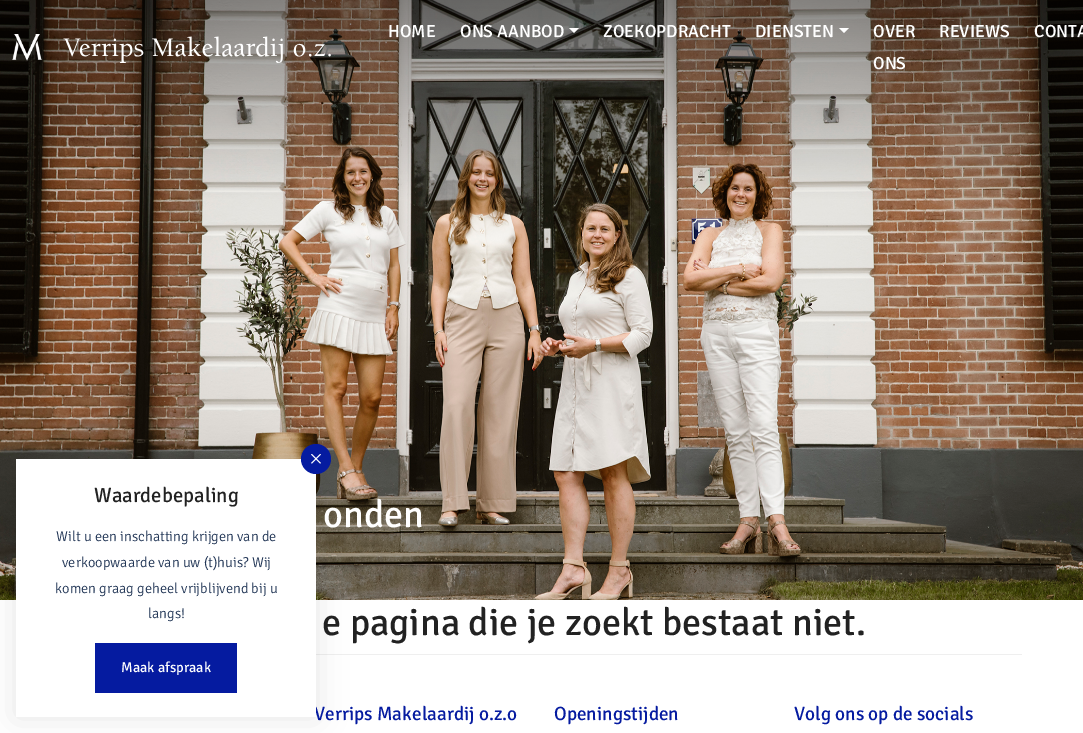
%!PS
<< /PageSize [1083 733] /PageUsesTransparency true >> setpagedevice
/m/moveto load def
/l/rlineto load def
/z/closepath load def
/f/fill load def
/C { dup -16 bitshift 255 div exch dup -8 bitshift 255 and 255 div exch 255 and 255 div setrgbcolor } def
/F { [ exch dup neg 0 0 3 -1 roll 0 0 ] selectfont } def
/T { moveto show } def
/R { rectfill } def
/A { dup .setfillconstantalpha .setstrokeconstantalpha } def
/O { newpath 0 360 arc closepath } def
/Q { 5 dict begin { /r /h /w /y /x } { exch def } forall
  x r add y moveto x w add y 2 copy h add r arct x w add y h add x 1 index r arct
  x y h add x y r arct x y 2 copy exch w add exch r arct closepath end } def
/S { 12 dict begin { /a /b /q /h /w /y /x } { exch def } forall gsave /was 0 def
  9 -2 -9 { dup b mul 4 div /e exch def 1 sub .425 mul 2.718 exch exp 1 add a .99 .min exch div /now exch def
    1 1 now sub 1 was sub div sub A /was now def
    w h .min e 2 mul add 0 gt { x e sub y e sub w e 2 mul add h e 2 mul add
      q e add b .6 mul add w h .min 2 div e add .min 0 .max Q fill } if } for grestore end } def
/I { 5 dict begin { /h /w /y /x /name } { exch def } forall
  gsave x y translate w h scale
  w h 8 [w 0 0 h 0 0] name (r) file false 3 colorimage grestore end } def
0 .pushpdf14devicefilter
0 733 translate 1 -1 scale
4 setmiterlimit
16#FFFFFF C
0 0 1083 733 R
(2.rgb) 0 0 1083 600 I
(1.rgb) 12 34 319 29 I
/Signika-Medium 17.5 F
(HOME) 388 37 T
(ONS AANBOD) 460 37 T
569 28 m 10 0 l -5 5 l z f
(ZOEKOPDRACHT) 603 37 T
(DIENSTEN) 755 37 T
839 28 m 10 0 l -5 5 l z f
(OVER) 873 37 T
(ONS) 873 69 T
(REVIEWS) 939 37 T
(CONTA) 1034 37 T
16#EFEFEF C
316 654 706 1 R
16#000000 C
16 459 300 258 0 15 .1 S
/Signika-Regular 19.25 F
16#051BA0 C
(Verrips Makelaardij o.z.o) 314 720 T
16#FFFFFF C
16 459 300 258 R
16#051BA0 C
316 459 15 O f
16#FFFFFF C
311 463 m 9 -9 l 1 .5 l -9 9 l z f
312 454 m 9 9 l -1 .5 l -9 -9 l z f
/Signika-Regular 20.75 F
16#222222 C
(Waardebepaling) 94 502 T
/Signika-Light 14.4 F
16#223656 C
(Wilt u een inschatting krijgen van de) 56 541 T
(verkoopwaarde van uw \(t\)huis? Wij) 62 567 T
(komen graag geheel vrijblijvend bij u) 55 593 T
(langs!) 148 618 T
16#051BA0 C
95 643 142 50 R
/Signika-Regular 14.4 F
16#FFFFFF C
(Maak afspraak) 121 672 T
/Signika-Regular 38.25 F
(onden) 323 527 T
16#222222 C
(e pagina die je zoekt bestaat niet.) 322 635 T
/Signika-Regular 19.25 F
16#051BA0 C
(Openingstijden) 554 720 T
(Volg ons op de socials) 794 720 T
.poppdf14devicefilter showpage
